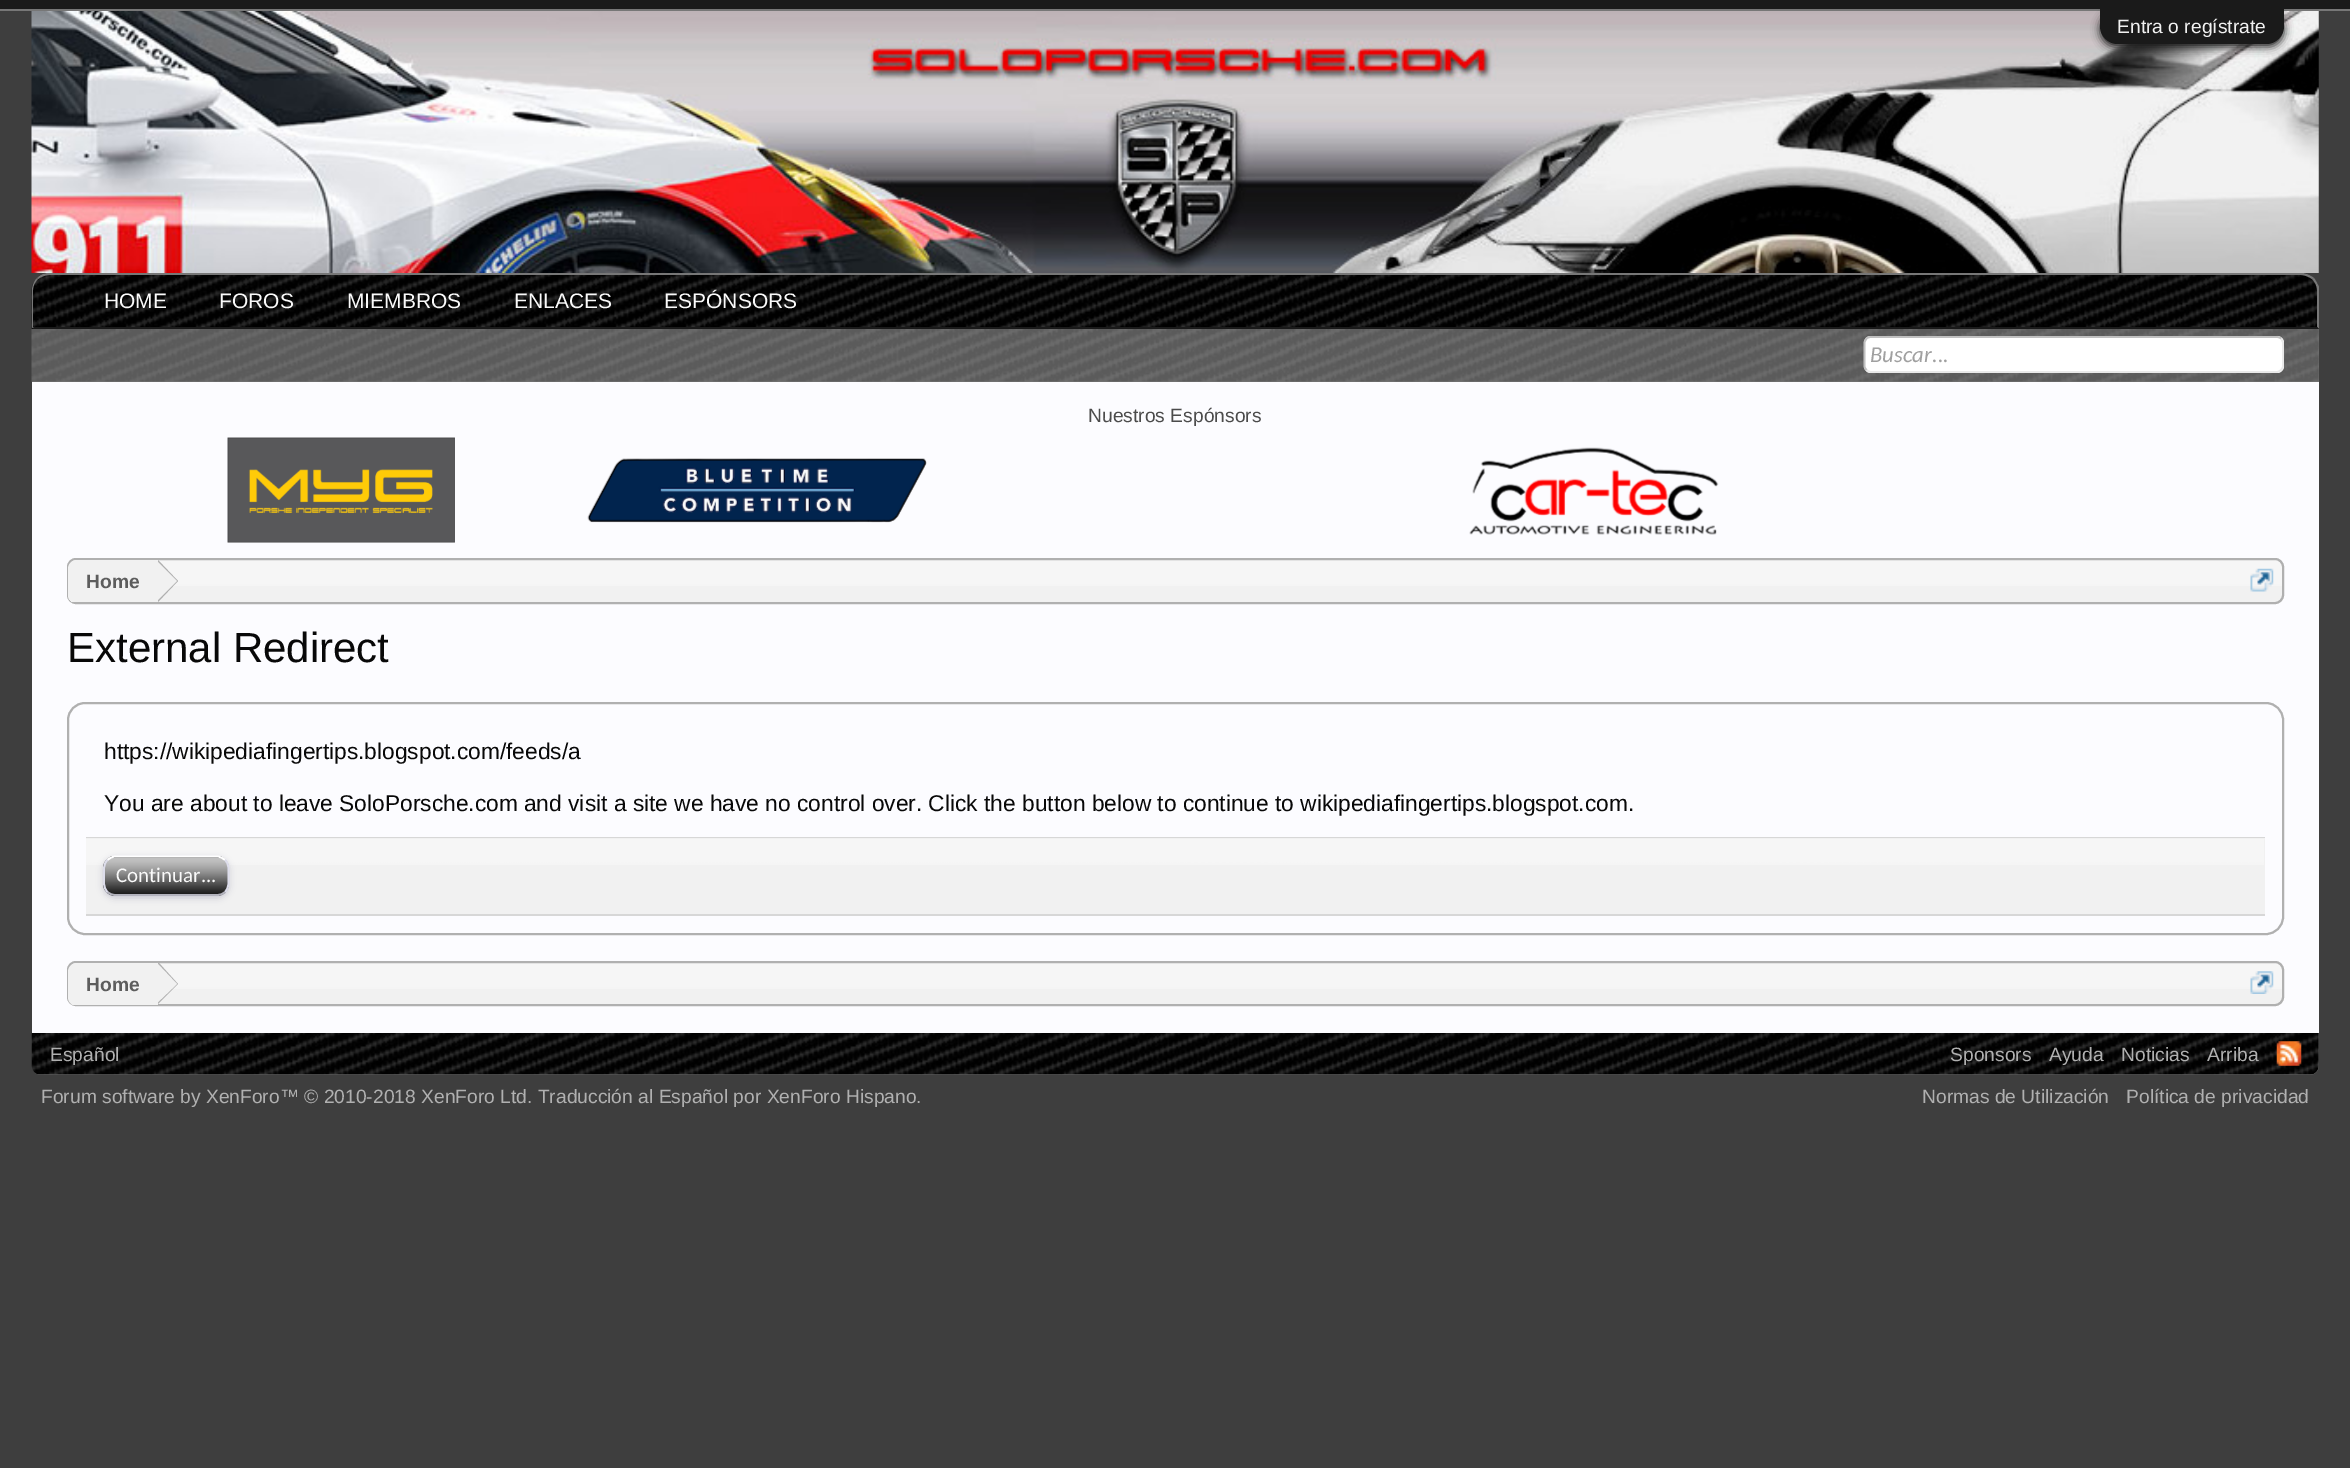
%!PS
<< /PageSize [2350 1468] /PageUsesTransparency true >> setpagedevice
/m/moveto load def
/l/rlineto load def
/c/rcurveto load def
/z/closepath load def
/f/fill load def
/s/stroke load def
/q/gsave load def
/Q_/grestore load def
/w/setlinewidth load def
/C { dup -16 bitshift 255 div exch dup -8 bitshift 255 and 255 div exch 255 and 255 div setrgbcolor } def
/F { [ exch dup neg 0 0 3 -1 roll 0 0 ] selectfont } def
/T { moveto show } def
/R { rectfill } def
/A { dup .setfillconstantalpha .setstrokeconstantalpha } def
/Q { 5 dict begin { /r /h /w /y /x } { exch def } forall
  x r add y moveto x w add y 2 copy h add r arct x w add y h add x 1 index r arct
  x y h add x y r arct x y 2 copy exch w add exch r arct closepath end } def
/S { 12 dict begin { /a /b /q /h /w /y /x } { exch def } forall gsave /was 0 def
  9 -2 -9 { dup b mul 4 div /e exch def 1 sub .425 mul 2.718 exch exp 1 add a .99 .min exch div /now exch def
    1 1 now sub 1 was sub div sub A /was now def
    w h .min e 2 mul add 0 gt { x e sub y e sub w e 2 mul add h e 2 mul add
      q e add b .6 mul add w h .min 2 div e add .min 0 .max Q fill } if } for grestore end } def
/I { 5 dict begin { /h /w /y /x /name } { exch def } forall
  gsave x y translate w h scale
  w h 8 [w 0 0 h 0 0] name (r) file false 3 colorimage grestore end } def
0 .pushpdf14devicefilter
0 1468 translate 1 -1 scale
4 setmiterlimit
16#3E3E3E C
0 0 2350 1468 R
16#1A1A1A C
0 0 2350 9 R
16#777777 C
0 9 2350 2 R
(1.rgb) 31 11 2288 262 I
16#1A1A1A C
2100 12 184 35 17.5 4.5 1 S
2100 9 m 184 0 l 0 17.5 l 0 9.5 -8 17.5 -17.5 17.5 c -149 0 l -9.5 0 -17.5 -8 -17.5 -17.5 c z f
/LiberationSans-Regular 19.25 F
16#F1F1F1 C
(Entra o regístrate) 2117 33 T
(2.rgb) 31 273 2288 56 I
16#777777 C
49 273 m -5 0 -9 2 -12 5 c 1 1 l 3 -2 7 -4 11 -4 c 2252 0 l 4 0 8 2 11 4 c 2 -1 l -4 -3 -8 -5 -13 -5 c z f
2319 287 m 0 42 l -2 -2 l 0 -37 l 0 -4 -2 -8 -5 -11 c 2 -1 l 2 3 4 6 5 9 c z f
16#1A1A1A C
2319 329 m -2 -2 l -2283 0 l -2 2 l z f
16#777777 C
37 278 m -3 3 -5 8 -5 12 c 0 38 l 2 -1 l -1 0 l 0 -37 l 0 -4 2 -8 5 -11 c z f
/LiberationSans-Regular 21 F
16#FAFAFA C
(HOME) 104 308 T
(FOROS) 219 308 T
(MIEMBROS) 347 308 T
(ENLACES) 514 308 T
(ESPÓNSORS) 664 308 T
16#777777 C
32 329 2287 53 R
(3.rgb) 31 329 2288 53 I
16#FFFFFF C
1864 336 420 37 7 Q f
16#E9E9E9 C
1.8 w
2281 338.5 m 1 1.5 2 3 2 4.5 c 0 23 l 0 1.5 -1 3 -2 4 c -1 1 -2.5 2 -4 2 c -406 0 l -2 0 -3.5 -1 -4.5 -2 c s
16#C0C0C0 C
1866.5 370 m -1 -1 -2 -2.5 -2 -4 c 0 -23 l 0 -1.5 1 -3 2 -4.5 c 1 -1 2.5 -1.5 4.5 -1.5 c 406 0 l 1.5 0 3 .5 4 1.5 c s
/Carlito-Italic 22.75 F
16#A0A0A0 C
(Buscar...) 1870 362 T
16#5D5D5D C
32 1033 m 2287 0 l 0 33 l 0 5 -4 9 -9 9 c -2269 0 l -5 0 -9 -4 -9 -9 c z f
(13.rgb) 31 1032 2288 43 I
16#FCFCFF C
32 382 2287 651 R
/LiberationSans-Regular 19.25 F
16#4B4B4B C
(Nuestros Espónsors) 1088 422 T
(4.rgb) 227 437 228 106 I
(5.rgb) 587 458 340 65 I
(6.rgb) 1469 447 250 88 I
16#F1F1F1 C
67 558 2217 46 9 Q f
(7.rgb) 67 560 2216 26 I
16#B0B0B0 C
2 w
68 559 2215 44 8 Q s
q
68 560 2214 42 7 Q clip newpath
16#F1F1F1 C
77 560 m 81 0 l 0 44 l -81 0 l -5 0 -9 -4 -9 -9 c 0 -26 l 0 -5 4 -9 9 -9 c z f
Q_
/LiberationSans-Bold 19.25 F
16#5D5D5D C
(Home) 86 588 T
16#B0B0B0 C
158 602 m 0 -42 l 20 21 l z f
16#F1F1F1 C
156 602 m 0 -42 l 21 21 l z f
(8.rgb) 2250 568 24 24 I
/LiberationSans-Regular 42 F
16#080808 C
(External Redirect) 67 662 T
16#B0B0B0 C
68 703 2215 231 17 Q s
16#D7D7D7 C
86 837 2179 1 R
/LiberationSans-Regular 22.75 F
16#080808 C
(https://wikipediafingertips.blogspot.com/feeds/a) 104 759 T
(You are about to leave SoloPorsche.com and visit a site we have no control over. Click the button below to continue to wikipediafingertips.blogspot.com.) 104 811 T
16#F1F1F1 C
86 838 2179 76 R
(9.rgb) 86 839 2178 26 I
16#D7D7D7 C
86 914 2179 2 R
16#C8C8D2 C
103 858 126 40 12 3.5 1 S
16#000000 C
103 856 126 40 12 Q f
(10.rgb) 103 857 126 39 I
16#FFFFFF C
1.8 w
107.5 860 m 2 -2 5 -3.5 8 -3.5 c 101.5 0 l 3 0 6 1.5 8 3.5 c s
16#DDDDEB C
225 860 m 4.5 4 3.5 10.5 3.5 16 c 0 5.5 1 11.5 -3.5 16 c s
16#B3B3BD C
225 892 m -2 2 -5 3 -8 3 c -101.5 0 l -3 0 -6 -1 -8 -3 c s
16#DDDDEB C
107.5 892 m -4.5 -4.5 -3.5 -10.5 -3.5 -16 c 0 -5.5 -1 -12 3.5 -16 c s
/Carlito-Regular 21 F
16#FAFAFA C
(Continuar...) 116 882 T
16#F1F1F1 C
67 961 2217 45 9 Q f
(11.rgb) 67 963 2216 26 I
16#B0B0B0 C
2 w
68 962 2215 43 8 Q s
q
68 963 2214 42 7 Q clip newpath
16#F1F1F1 C
77 963 m 81 0 l 0 43 l -81 0 l -5 0 -9 -4 -9 -9 c 0 -25 l 0 -5 4 -9 9 -9 c z f
Q_
/LiberationSans-Bold 19.25 F
16#5D5D5D C
(Home) 86 991 T
16#B0B0B0 C
158 1004 m 20 -20 l -19 -21 l -1 0 l z f
16#F1F1F1 C
156 1004 m 21 -20 l -20 -21 l -1 0 l z f
(12.rgb) 2250 971 24 23 I
/LiberationSans-Regular 19.25 F
16#B0B0B0 C
(Español) 50 1061 T
(Sponsors) 1950 1061 T
(Ayuda) 2049 1061 T
(Noticias) 2121 1061 T
(Arriba) 2207 1061 T
(14.rgb) 2276 1041 26 25 I
(Forum software by XenForo™ © 2010-2018 XenForo Ltd. Traducción al Español por XenForo Hispano.) 41 1103 T
(Normas de Utilización) 1922 1103 T
(Política de privacidad) 2126 1103 T
.poppdf14devicefilter showpage
